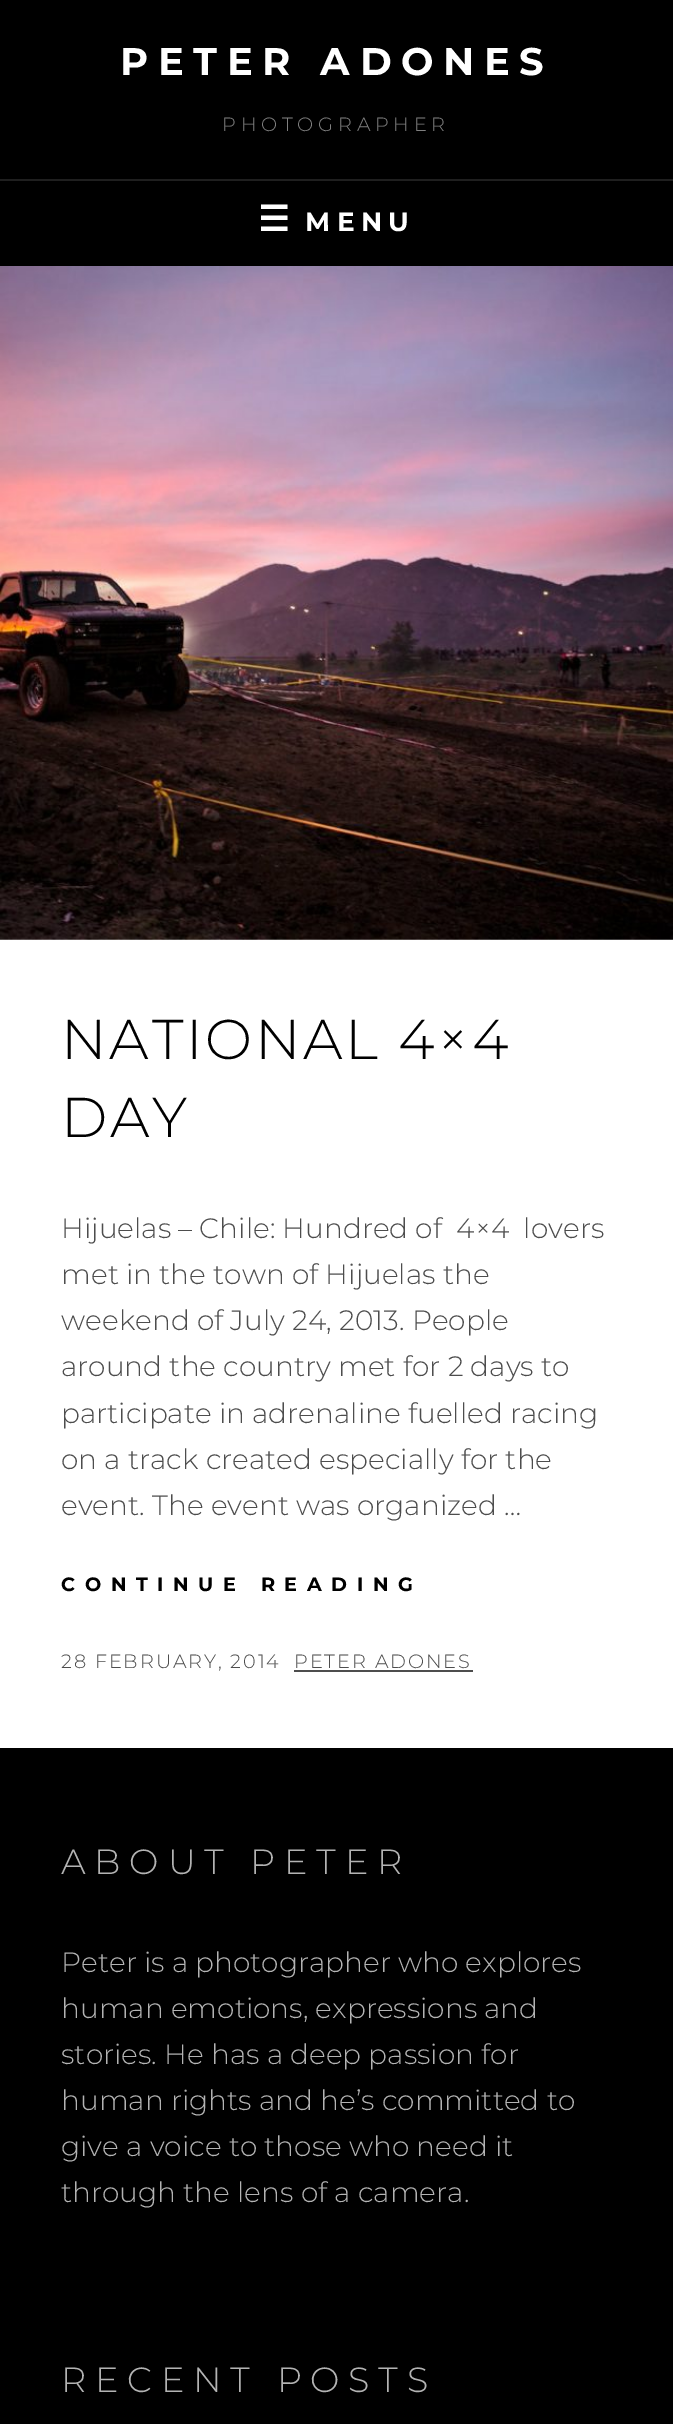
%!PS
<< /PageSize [673 2424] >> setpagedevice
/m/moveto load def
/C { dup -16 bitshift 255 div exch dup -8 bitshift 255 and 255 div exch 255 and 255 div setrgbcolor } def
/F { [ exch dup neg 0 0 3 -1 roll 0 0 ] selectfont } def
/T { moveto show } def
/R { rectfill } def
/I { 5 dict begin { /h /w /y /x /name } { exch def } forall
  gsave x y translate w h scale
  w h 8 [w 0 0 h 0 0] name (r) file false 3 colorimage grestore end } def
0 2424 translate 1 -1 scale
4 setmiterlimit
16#FFFFFF C
0 0 673 2424 R
16#000000 C
0 0 673 266 R
/Montserrat-Bold 38.5 F
16#FFFFFF C
120 75 m 9.6 0 (PETER ADONES) ashow
/Montserrat-Light 19.25 F
16#808080 C
222 131 m 4.75 0 (PHOTOGRAPHER) ashow
16#1F1F1F C
0 179 673 2 R
/DejaVuSans-Bold 35 F
16#FFFFFF C
258 231 m 6.5 0 (☰) ashow
/Montserrat-Bold 26.25 F
305 231 m 6.5 0 (MENU) ashow
(1.rgb) 0 266 673 674 I
/Montserrat-Light 56 F
16#000000 C
61 1059 m 2.75 0 (NATIONAL 4×4) ashow
61 1137 m 2.75 0 (DAY) ashow
/Montserrat-Light 28 F
16#4D4D4D C
(Hijuelas – Chile: Hundred of  4×4  lovers) 61 1238 T
(met in the town of Hijuelas the) 61 1284 T
(weekend of July 24, 2013. People) 61 1330 T
(around the country met for 2 days to) 61 1376 T
(participate in adrenaline fuelled racing) 61 1423 T
(on a track created especially for the) 61 1469 T
(event. The event was organized …) 61 1515 T
/Montserrat-Bold 19.25 F
16#000000 C
61 1591 m 9.6 0 (CONTINUE READING) ashow
/Montserrat-Light 19.25 F
16#4D4D4D C
61 1668 m 1.9 0 (28 FEBRUARY, 2014) ashow
294 1668 m 1.9 0 (PETER ADONES) ashow
294 1670 179 2 R
16#000000 C
0 1748 673 676 R
/Montserrat-Light 35 F
16#B3B3B3 C
61 1874 m 8.75 0 (ABOUT PETER) ashow
/Montserrat-Light 28 F
(Peter is a photographer who explores) 61 1972 T
(human emotions, expressions and) 61 2018 T
(stories. He has a deep passion for) 61 2064 T
(human rights and he’s committed to) 61 2110 T
(give a voice to those who need it) 61 2156 T
(through the lens of a camera.) 61 2202 T
/Montserrat-Light 35 F
61 2392 m 8.75 0 (RECENT POSTS) ashow
showpage
